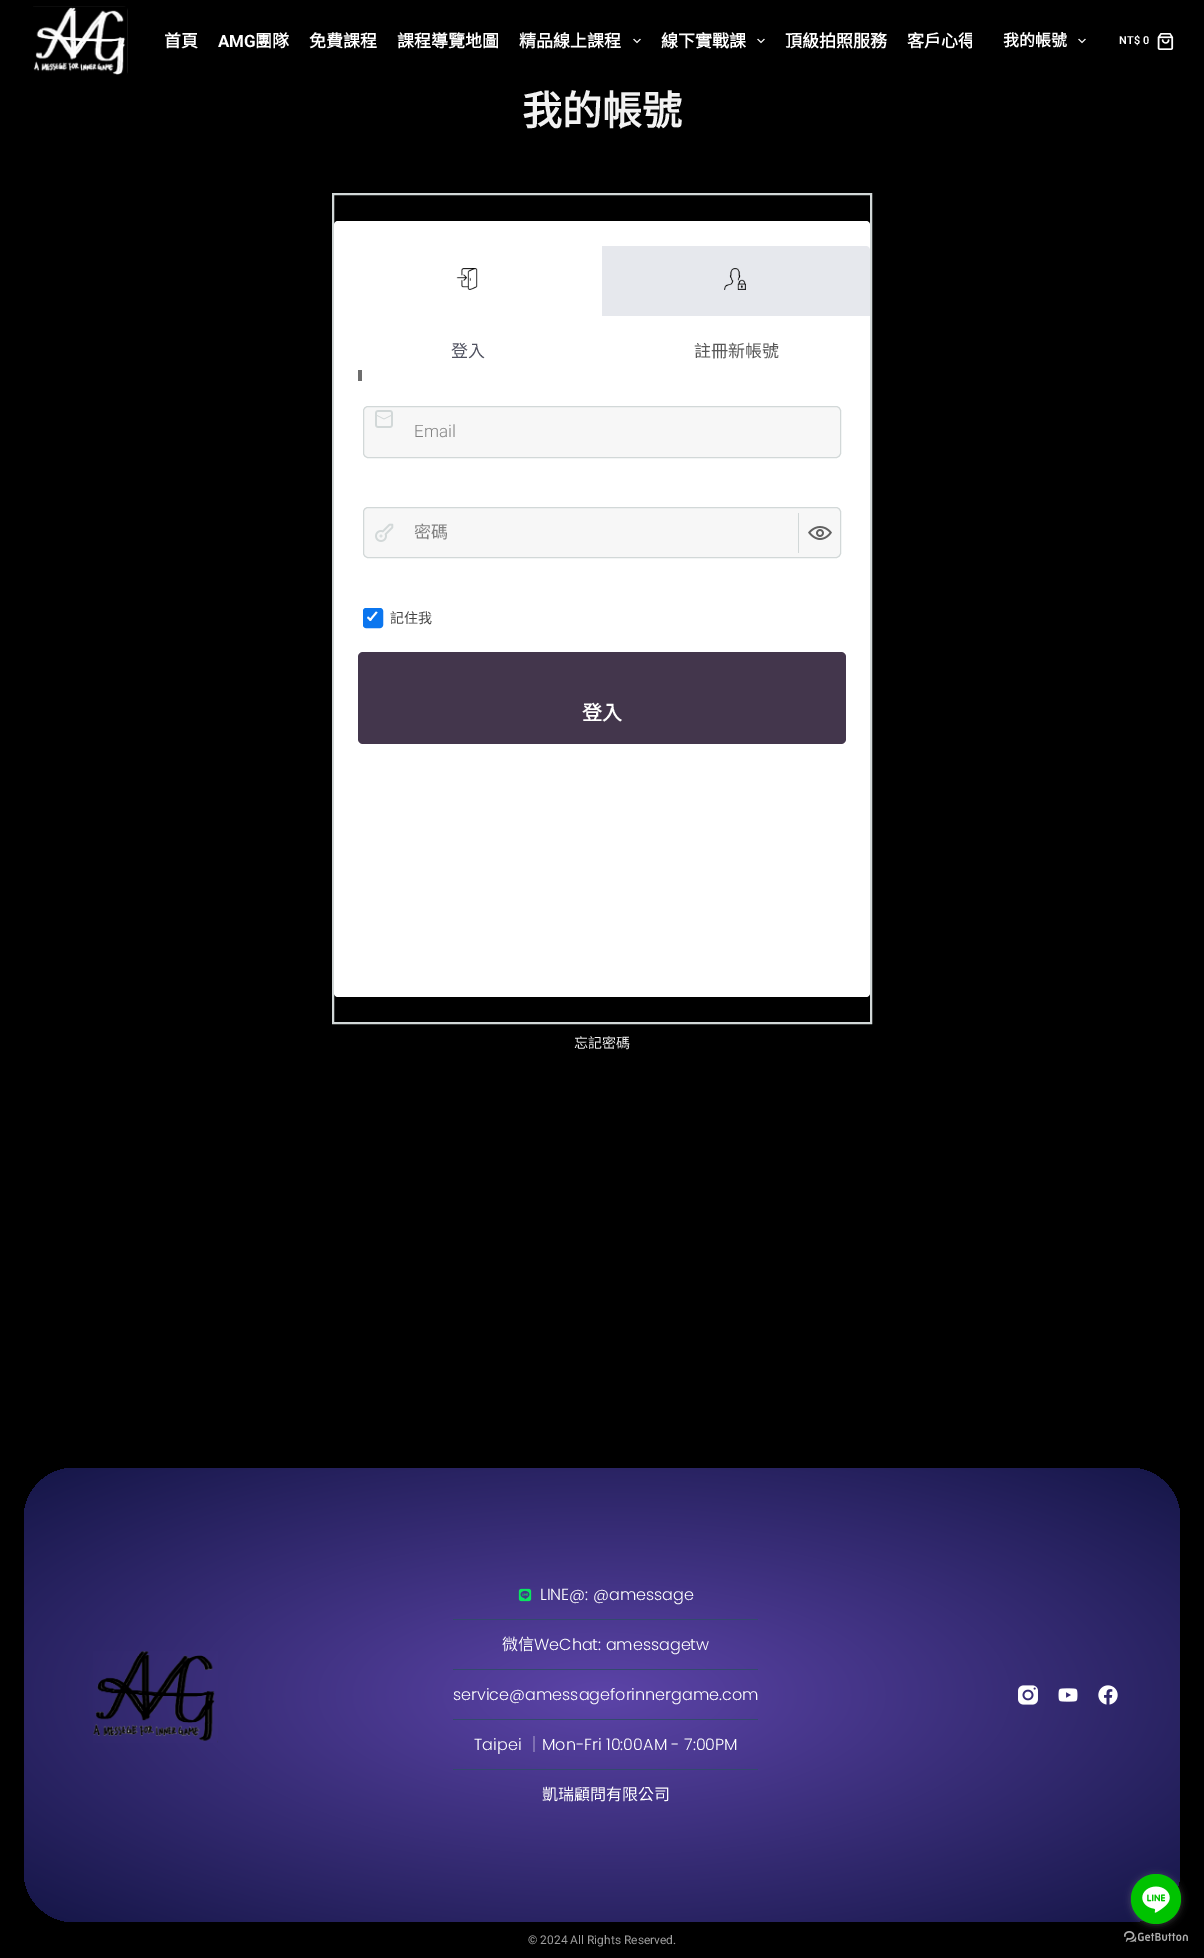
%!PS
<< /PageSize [1204 1958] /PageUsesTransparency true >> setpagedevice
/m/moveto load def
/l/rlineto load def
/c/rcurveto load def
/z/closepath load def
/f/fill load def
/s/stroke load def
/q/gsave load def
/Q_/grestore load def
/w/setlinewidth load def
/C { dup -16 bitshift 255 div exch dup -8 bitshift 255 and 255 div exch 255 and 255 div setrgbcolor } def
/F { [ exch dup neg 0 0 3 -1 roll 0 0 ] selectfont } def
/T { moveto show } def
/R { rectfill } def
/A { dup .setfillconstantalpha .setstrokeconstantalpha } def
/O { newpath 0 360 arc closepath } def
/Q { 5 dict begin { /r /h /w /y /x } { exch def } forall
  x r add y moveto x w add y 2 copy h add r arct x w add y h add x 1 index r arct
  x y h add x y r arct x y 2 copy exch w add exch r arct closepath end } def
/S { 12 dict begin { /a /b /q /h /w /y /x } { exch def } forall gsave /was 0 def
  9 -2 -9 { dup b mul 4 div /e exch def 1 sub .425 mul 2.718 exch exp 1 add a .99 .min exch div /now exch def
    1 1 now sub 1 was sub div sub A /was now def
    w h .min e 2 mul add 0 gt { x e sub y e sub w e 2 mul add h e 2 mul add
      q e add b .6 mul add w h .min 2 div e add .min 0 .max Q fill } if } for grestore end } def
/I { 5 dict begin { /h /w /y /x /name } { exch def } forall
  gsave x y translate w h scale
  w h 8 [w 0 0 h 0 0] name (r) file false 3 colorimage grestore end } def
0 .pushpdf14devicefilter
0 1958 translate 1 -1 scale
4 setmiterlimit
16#000000 C
0 0 1204 1958 R
(1.rgb) 33 6 95 69 I
/NotoSansCJKTC-Bold 17 F
16#FFFFFF C
(首頁) 164 47 T
/Roboto-Bold 17 F
(AMG) 218 47 T
/NotoSansCJKTC-Bold 17 F
(團隊) 255 47 T
(免費課程) 309 47 T
(課程導覽地圖) 397 47 T
(精品線上課程) 519 47 T
(2.rgb) 633 38 8 6 I
(線下實戰課) 661 47 T
(2.rgb) 757 38 8 6 I
(頂級拍照服務) 785 47 T
q
154 0 818 82 rectclip
(客戶心得) 907 47 T
Q_
/NotoSansCJKTC-Bold 16 F
(我的帳號) 1003 46 T
(2.rgb) 1078 38 8 6 I
/Roboto-SemiBold 11 F
(NT$ 0) 1119 44 T
(3.rgb) 1157 33 17 17 I
/NotoSansCJKTC-Bold 40 F
16#F2F2F2 C
(我的帳號) 522 125 T
16#D2D8D8 C
2 w
333 194 538 829 rectstroke
16#FFFFFF C
334 221 536 776 4 Q f
(4.rgb) 456 268 22 22 I
/NotoSansCJKTC-Regular 17 F
16#505260 C
(登入) 451 357 T
16#E6E8ED C
602 246 m 264 0 l 2 0 4 2 4 4 c 0 66 l -268 0 l z f
(5.rgb) 724 268 22 22 I
16#595959 C
(註冊新帳號) 694 357 T
16#6D6D6D C
358 370 4 11 R
16#F7F7F7 C
363.5 406.5 477 51 4.5 Q q f Q_
16#D2D8D8 C
1 w
s
(6.rgb) 375 410 18 18 I
/Roboto-Light 17 F
16#818181 C
(Email) 414 437 T
16#F7F7F7 C
363.5 507.5 477 50 4.5 Q q f Q_
16#D2D8D8 C
s
(7.rgb) 375 523 19 19 I
/NotoSansCJKTC-Regular 17 F
16#818181 C
(密碼) 414 538 T
(8.rgb) 808 526 24 14 I
16#D2D8D8 C
798 513 1 40 R
16#0B76EF C
364 609 18 18 2 Q q f Q_
2 w
s
16#FFFFFF C
376 611.5 m 1.5 1 l -7 8.5 l -1.5 -1 l z f
368 616.5 m 4 3 l -1.5 1.5 l -3.5 -3 l z f
/NotoSansCJKTC-Regular 14 F
16#444444 C
(記住我) 390 623 T
16#43364C C
358 652 488 92 5 Q f
/NotoSansCJKTC-Bold 20 F
16#FFFFFF C
(登入) 582 720 T
/NotoSansCJKTC-Regular 14 F
16#F2F2F2 C
(忘記密碼) 574 1048 T
q 24 1468 1156 454 50 Q clip newpath 602 1695 translate 817 321 scale
<< /ShadingType 3 /ColorSpace /DeviceRGB /Coords [0 0 0 0 0 1] /Extend [true true] /Function << /FunctionType 2 /Domain [0 1] /C0 [.361 .267 .659] /C1 [.082 .086 .278] /N 1 >> >> shfill Q_
(9.rgb) 93 1651 125 92 I
(10.rgb) 518 1588 14 14 I
/Poppins-Light 16 F
16#FFFFFF C
(LINE@: @amessage) 540 1600 T
16#324A6D C
453 1619 305 1 R
/NotoSansCJKTC-Regular 16 F
16#FFFFFF C
(微信) 502 1650 T
/Poppins-Light 16 F
(WeChat: amessagetw) 534 1650 T
16#324A6D C
453 1669 305 1 R
16#FFFFFF C
(service@amessageforinnergame.com) 453 1700 T
16#324A6D C
453 1719 305 1 R
16#FFFFFF C
(Taipei) 474 1750 T
/NotoSansCJKTC-Regular 16 F
(｜) 526 1750 T
/Poppins-Light 16 F
(Mon-Fri 10:00AM - 7:00PM) 542 1750 T
16#324A6D C
453 1769 305 1 R
/NotoSansCJKTC-Regular 16 F
16#FFFFFF C
(凱瑞顧問有限公司) 542 1800 T
(11.rgb) 1018 1685 20 20 I
(12.rgb) 1058 1688 20 14 I
(13.rgb) 1098 1685 20 20 I
/Roboto-Regular 12 F
16#9E9E9E C
(© 2024 All Rights Reserved.) 528 1944 T
(15.rgb) 1124 1931 64 11 I
16#888888 C
1131 1875 50 50 25 3.5 .4 S
16#00C300 C
1156 1899 25 O f
(14.rgb) 1142 1886 28 27 I
.poppdf14devicefilter showpage
